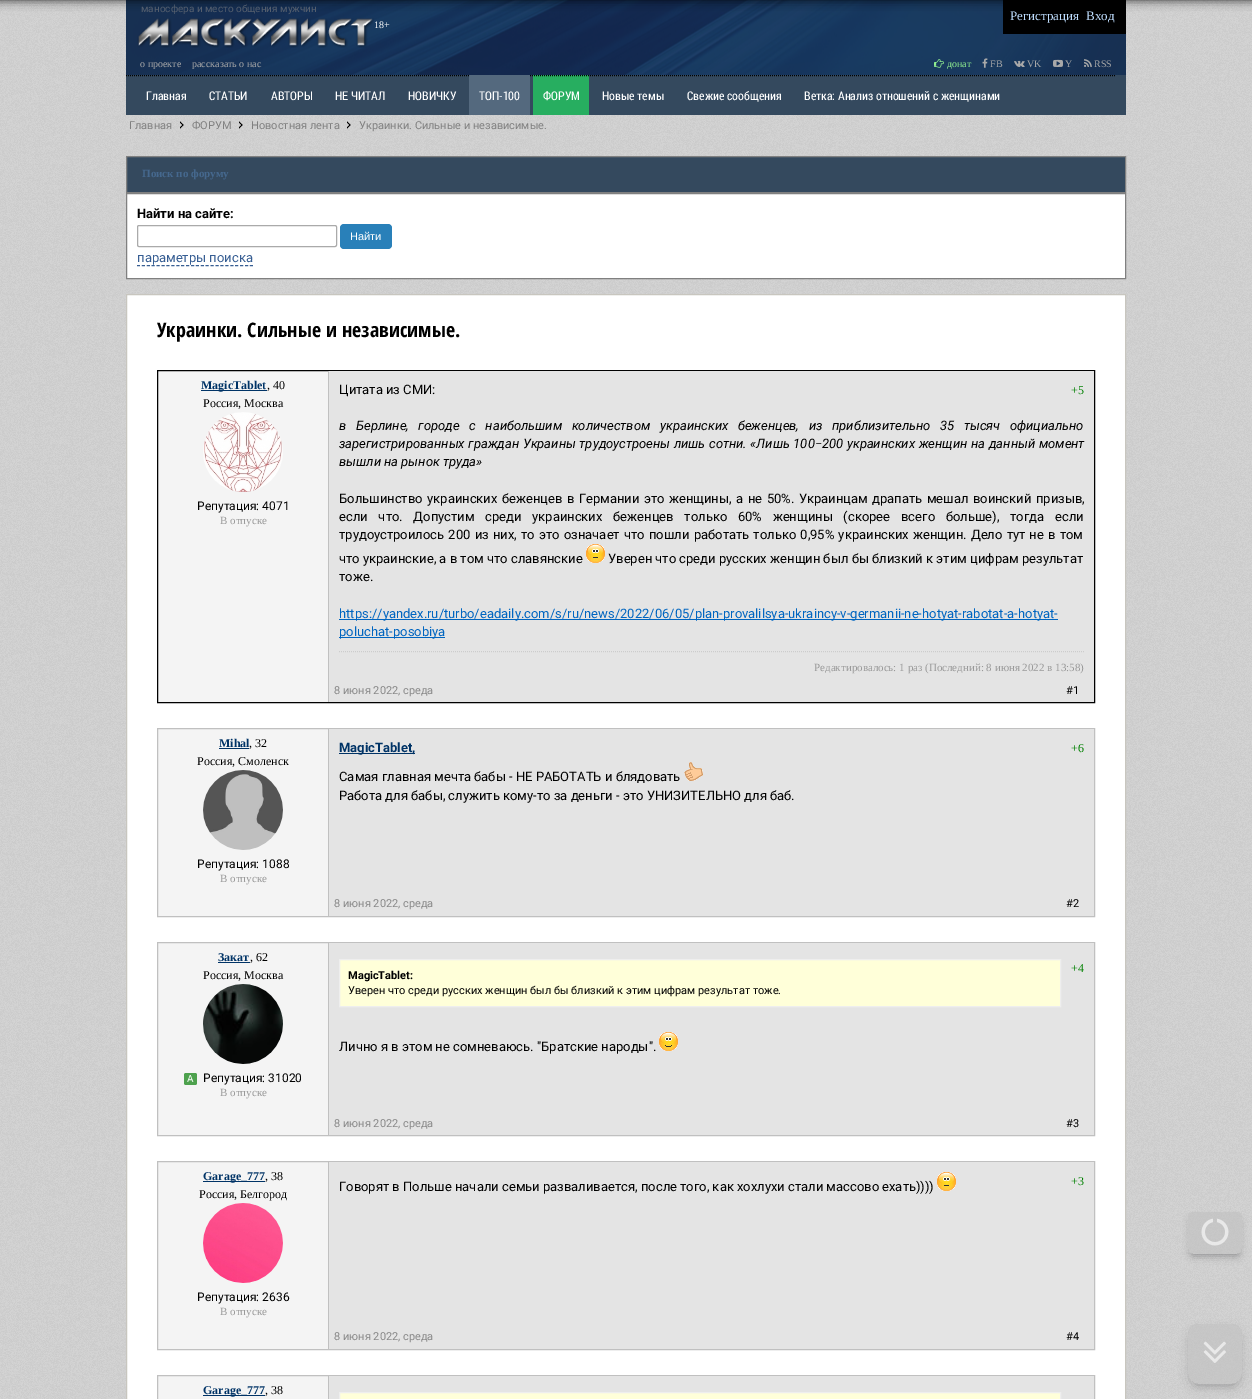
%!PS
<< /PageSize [1252 1399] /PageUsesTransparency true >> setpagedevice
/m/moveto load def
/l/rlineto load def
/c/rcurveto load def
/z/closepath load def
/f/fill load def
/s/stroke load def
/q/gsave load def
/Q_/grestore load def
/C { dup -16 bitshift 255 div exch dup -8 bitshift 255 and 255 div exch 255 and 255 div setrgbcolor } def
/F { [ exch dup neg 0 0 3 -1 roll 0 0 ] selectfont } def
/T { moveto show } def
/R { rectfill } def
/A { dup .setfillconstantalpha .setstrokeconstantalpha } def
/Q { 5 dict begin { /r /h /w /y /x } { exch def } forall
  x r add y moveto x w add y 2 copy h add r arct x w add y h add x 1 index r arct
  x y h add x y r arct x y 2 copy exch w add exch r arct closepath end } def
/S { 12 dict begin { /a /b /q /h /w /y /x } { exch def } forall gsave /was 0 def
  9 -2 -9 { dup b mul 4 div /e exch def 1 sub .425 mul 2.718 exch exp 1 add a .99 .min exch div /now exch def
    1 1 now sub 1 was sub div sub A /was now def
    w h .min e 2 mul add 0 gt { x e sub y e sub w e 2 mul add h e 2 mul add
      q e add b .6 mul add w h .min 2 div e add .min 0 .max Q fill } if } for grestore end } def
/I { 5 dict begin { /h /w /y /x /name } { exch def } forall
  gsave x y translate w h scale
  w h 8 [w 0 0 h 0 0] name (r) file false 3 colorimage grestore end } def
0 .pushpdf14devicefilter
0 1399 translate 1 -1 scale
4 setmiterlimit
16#FFFFFF C
0 0 1252 1399 R
(1.rgb) 0 0 1252 1399 I
(2.rgb) 126 0 1000 75 I
16#000000 C
1003 0 123 34 R
-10 -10 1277 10 0 5 .8 S
/Roboto-Regular 10 F
16#555F6E C
(маносфера и место общения мужчин) 141 12 T
(3.rgb) 137 18 237 30 I
/LiberationSerif-Regular 10 F
16#FFFFFF C
(18+) 374 28 T
/LiberationSerif-Regular 13 F
16#BFDEFF C
(Регистрация) 1010 20 T
(Вход) 1086 20 T
16#34495E C
126 75 1000 40 R
16#27AE60 C
533 75 56 40 R
16#000000 C
[1 1] 0 setdash
126 75.5 m 990 0 l s
/LiberationSerif-Regular 10 F
16#A9A9A9 C
(о проекте) 140 67 T
(рассказать о нас) 192 67 T
(4.rgb) 934 59 10 9 I
16#90EE90 C
(донат) 947 67 T
(5.rgb) 982 58 6 10 I
16#A9A9A9 C
(FB) 990 67 T
(6.rgb) 1014 60 11 7 I
(VK) 1027 67 T
(7.rgb) 1053 59 10 8 I
(Y) 1065 67 T
(8.rgb) 1084 59 8 8 I
(RSS) 1094 67 T
/RobotoCondensed-Regular 12 F
16#FFFFFF C
(Главная) 146 100 T
(СТАТЬИ) 209 100 T
(АВТОРЫ) 271 100 T
(НЕ ЧИТАЛ) 335 100 T
(НОВИЧКУ) 408 100 T
16#54697E C
469 75 61 40 R
16#FFFFFF C
(ТОП-100) 479 100 T
(ФОРУМ) 543 100 T
(Новые темы) 602 100 T
(Свежие сообщения) 687 100 T
(Ветка: Анализ отношений с женщинами) 804 100 T
/Roboto-Regular 11 F
16#808080 C
(Главная) 129 129 T
(9.rgb) 180 121 4 8 I
(ФОРУМ) 192 129 T
(10.rgb) 239 121 4 8 I
(Новостная лента) 251 129 T
(11.rgb) 347 121 4 8 I
(Украинки. Сильные и независимые.) 359 129 T
16#34495E C
126.5 156.5 m 999 0 l 0 36 l -999 0 l z q f Q_
16#808080 C
[] 0 setdash
s
/LiberationSerif-Bold 11 F
16#45688E C
(Поиск по форуму) 142 177 T
16#FFFFFF C
126.5 193.5 m 999 0 l 0 85 l -999 0 l z q f Q_
16#808080 C
s
/Roboto-Bold 13 F
16#000000 C
(Найти на сайте:) 137 218 T
16#AAAAAA C
137.5 225.5 199 21 1.5 Q s
16#2980B9 C
340 224 52 25 4 Q f
/LiberationSans-Regular 11 F
16#FFFFFF C
(Найти) 350 240 T
/Roboto-Regular 13 F
16#375E93 C
(параметры поиска) 137 262 T
[3 1.91] 0 setdash
137 265.5 m 116 0 l s
16#FFFFFF C
126.5 294.5 m 999 0 l 0 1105 l -999 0 l z q f Q_
16#C8C6BF C
[] 0 setdash
s
/OpenSansCondensed-Bold 20 F
16#000000 C
(Украинки. Сильные и независимые.) 157 337 T
16#F4F4F4 C
158 371 170 331 R
16#000000 C
157.5 370.5 937 332 rectstroke
16#003366 C
201 390 66 1 R
/LiberationSerif-Bold 12 F
(MagicTablet) 201 389 T
/LiberationSerif-Regular 12 F
16#000000 C
(, 40) 267 389 T
(Россия, Москва) 203 407 T
(12.rgb) 203 412 80 80 I
/Roboto-Regular 12 F
(Репутация: 4071) 197 510 T
/LiberationSerif-Regular 11 F
16#999999 C
(В отпуске) 220 524 T
16#E4E4E4 C
329 371 765 331 R
16#C0C0C0 C
328 371 1 331 R
/Roboto-Regular 13 F
16#000000 C
(Цитата из СМИ:) 339 394 T
/Roboto-Italic 13 F
339 430 m 6.5 0 32 (в Берлине, городе с наибольшим количеством украинских беженцев, из приблизительно 35 тысяч официально) widthshow
339 448 m .5 0 32 (зарегистрированных граждан Украины трудоустроены лишь сотни. «Лишь 100−200 украинских женщин на данный момент) widthshow
(вышли на рынок труда») 339 466 T
/Roboto-Regular 13 F
339 503 m 1.25 0 32 (Большинство украинских беженцев в Германии это женщины, а не 50%. Украинцам драпать мешал воинский призыв,) widthshow
339 521 m 7.5 0 32 (если что. Допустим среди украинских беженцев только 60% женщины \(скорее всего больше\), тогда если) widthshow
339 539 m 1 0 32 (трудоустроилось 200 из них, то это означает что пошли работать только 0,95% украинских женщин. Дело тут не в том) widthshow
(что украинские, а в том что славянские) 339 563 T
(13.rgb) 586 544 19 19 I
(Уверен что среди русских женщин был бы близкий к этим цифрам результат) 608 563 T
(тоже.) 339 581 T
16#0065C0 C
339 619 719 1 R
(https://yandex.ru/turbo/eadaily.com/s/ru/news/2022/06/05/plan-provalilsya-ukraincy-v-germanii-ne-hotyat-rabotat-a-hotyat-) 339 618 T
339 637 106 1 R
(poluchat-posobiya) 339 636 T
/LiberationSerif-Regular 12 F
16#008000 C
(+5) 1071 394 T
16#CCCCCC C
[1 1] 0 setdash
339 651.5 m 745 0 l s
/LiberationSerif-Regular 11 F
16#999999 C
(Редактировалось: 1 раз \(Последний: 8 июня 2022 в 13:58\)) 814 671 T
/Roboto-Regular 11 F
16#888888 C
(8 июня 2022, среда) 334 694 T
16#000000 C
(#1) 1066 694 T
16#F4F4F4 C
158 729 170 187 R
16#C0C0C0 C
[] 0 setdash
157.5 728.5 937 188 rectstroke
/LiberationSerif-Bold 12 F
16#003366 C
(Mihal) 219 747 T
219 748 30 1 R
/LiberationSerif-Regular 12 F
16#000000 C
(, 32) 249 747 T
(Россия, Смоленск) 197 765 T
(14.rgb) 203 770 80 80 I
/Roboto-Regular 12 F
(Репутация: 1088) 197 868 T
/LiberationSerif-Regular 11 F
16#999999 C
(В отпуске) 220 882 T
16#E4E4E4 C
329 729 765 187 R
16#C0C0C0 C
328 729 1 187 R
16#003366 C
339 753 76 1 R
/Roboto-Bold 13 F
(MagicTablet,) 339 752 T
/Roboto-Regular 13 F
16#000000 C
(Самая главная мечта бабы - НЕ РАБОТАТЬ и блядовать) 339 781 T
(15.rgb) 684 762 19 19 I
(Работа для бабы, служить кому-то за деньги - это УНИЗИТЕЛЬНО для баб.) 339 800 T
/LiberationSerif-Regular 12 F
16#008000 C
(+6) 1071 752 T
/Roboto-Regular 11 F
16#888888 C
(8 июня 2022, среда) 334 907 T
16#000000 C
(#2) 1066 907 T
16#F4F4F4 C
158 943 170 192 R
16#C0C0C0 C
157.5 942.5 937 193 rectstroke
/LiberationSerif-Bold 12 F
16#003366 C
(Закат) 218 961 T
218 962 32 1 R
/LiberationSerif-Regular 12 F
16#000000 C
(, 62) 250 961 T
(Россия, Москва) 203 979 T
(16.rgb) 203 984 80 80 I
16#4DA14D C
184 1073 13 12 2 Q f
/Roboto-Regular 10 F
16#FFFFFF C
(А) 187 1082 T
/Roboto-Regular 12 F
16#000000 C
(Репутация: 31020) 203 1082 T
/LiberationSerif-Regular 11 F
16#999999 C
(В отпуске) 220 1096 T
16#E4E4E4 C
329 943 765 192 R
16#C0C0C0 C
328 943 1 192 R
/LiberationSerif-Regular 12 F
16#008000 C
(+4) 1071 972 T
16#FFFFD9 C
339.5 959.5 m 721 0 l 0 47 l -721 0 l z q f Q_
16#EEEEEE C
s
/Roboto-Bold 11 F
16#000000 C
(MagicTablet:) 348 979 T
/Roboto-Regular 11 F
(Уверен что среди русских женщин был бы близкий к этим цифрам результат тоже.) 348 994 T
/Roboto-Regular 13 F
(Лично я в этом не сомневаюсь. "Братские народы".) 339 1051 T
(17.rgb) 659 1032 19 19 I
/Roboto-Regular 11 F
16#888888 C
(8 июня 2022, среда) 334 1127 T
16#000000 C
(#3) 1066 1127 T
16#F4F4F4 C
158 1162 170 187 R
16#C0C0C0 C
157.5 1161.5 937 188 rectstroke
16#003366 C
203 1181 62 1 R
/LiberationSerif-Bold 12 F
(Garage_777) 203 1180 T
/LiberationSerif-Regular 12 F
16#000000 C
(, 38) 265 1180 T
(Россия, Белгород) 199 1198 T
(18.rgb) 203 1203 80 80 I
/Roboto-Regular 12 F
(Репутация: 2636) 197 1301 T
/LiberationSerif-Regular 11 F
16#999999 C
(В отпуске) 220 1315 T
16#E4E4E4 C
329 1162 765 187 R
16#C0C0C0 C
328 1162 1 187 R
/Roboto-Regular 13 F
16#000000 C
(Говорят в Польше начали семьи разваливается, после того, как хохлухи стали массово ехать\)\)\)\)) 339 1191 T
(13.rgb) 937 1172 19 19 I
/LiberationSerif-Regular 12 F
16#008000 C
(+3) 1071 1185 T
/Roboto-Regular 11 F
16#888888 C
(8 июня 2022, среда) 334 1340 T
16#000000 C
(#4) 1066 1340 T
16#F4F4F4 C
158 1376 170 23 R
16#C0C0C0 C
157.5 1375.5 937 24 rectstroke
16#003366 C
203 1395 62 1 R
/LiberationSerif-Bold 12 F
(Garage_777) 203 1394 T
/LiberationSerif-Regular 12 F
16#000000 C
(, 38) 265 1394 T
16#E4E4E4 C
329 1376 765 23 R
16#C0C0C0 C
328 1376 1 23 R
16#FFFFD9 C
339.5 1392.5 m 721 0 l 0 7 l -721 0 l z q f Q_
16#EEEEEE C
s
q
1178 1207 m 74 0 l 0 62 l -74 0 l z 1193 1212 m 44 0 l 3 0 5 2 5 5 c 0 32 l 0 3 -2 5 -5 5 c -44 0 l -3 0 -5 -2 -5 -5 c 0 -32 l 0 -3 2 -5 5 -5 c z eoclip newpath
16#000006 C
1191 1220 48 36 2 4 .3 S
Q_
0.6 A
16#C0C0C0 C
1188 1212 54 42 5 Q f
1 A
(19.rgb) 1201 1218 28 28 I
q
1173 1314 m 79 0 l 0 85 l -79 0 l z 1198 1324 m 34 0 l 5.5 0 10 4.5 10 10 c 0 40 l 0 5.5 -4.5 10 -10 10 c -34 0 l -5.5 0 -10 -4.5 -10 -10 c 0 -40 l 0 -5.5 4.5 -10 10 -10 c z eoclip newpath
16#000006 C
1192 1333 46 52 6 6 .3 S
Q_
0.6 A
1188 1324 54 60 10 Q f
1 A
(20.rgb) 1203 1341 23 22 I
.poppdf14devicefilter showpage
